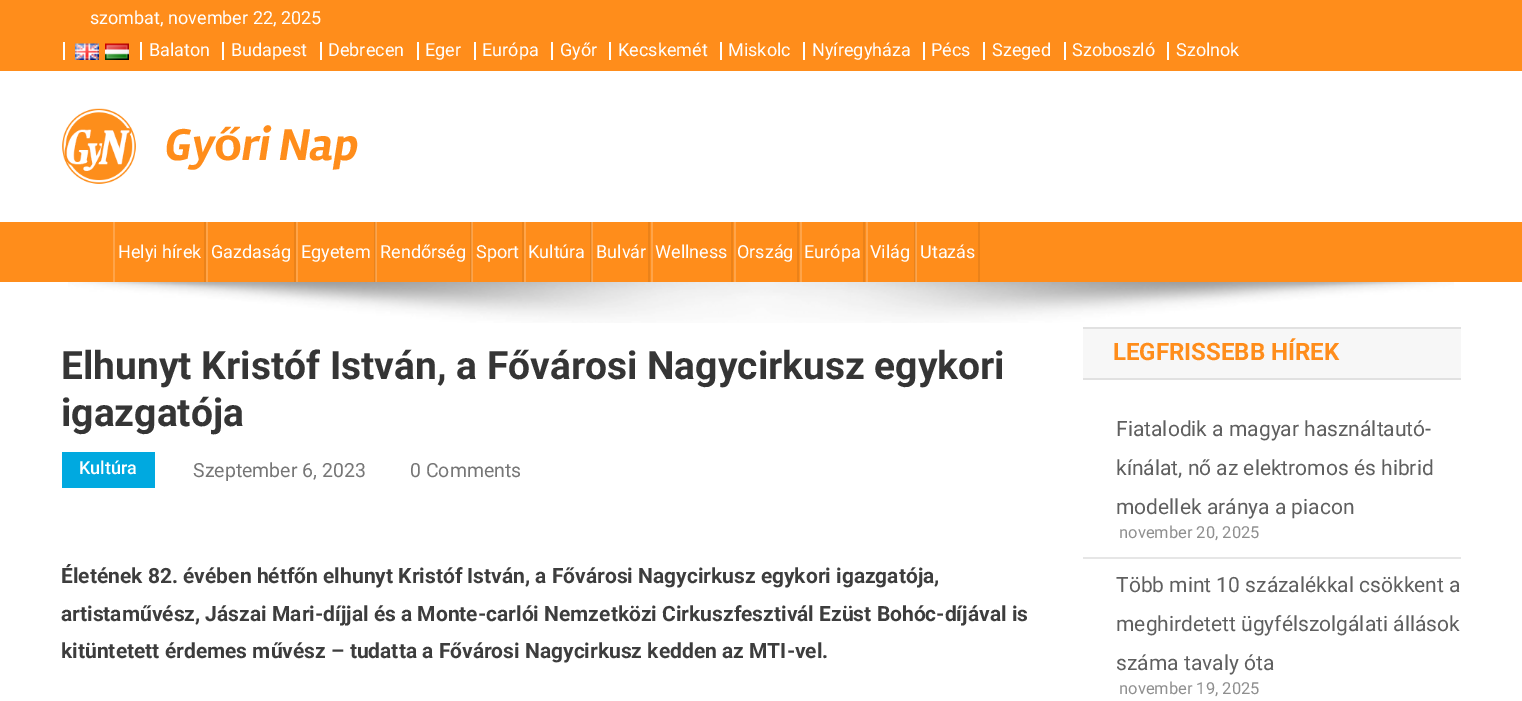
%!PS
<< /PageSize [1522 701] >> setpagedevice
/C { dup -16 bitshift 255 div exch dup -8 bitshift 255 and 255 div exch 255 and 255 div setrgbcolor } def
/F { [ exch dup neg 0 0 3 -1 roll 0 0 ] selectfont } def
/T { moveto show } def
/R { rectfill } def
/I { 5 dict begin { /h /w /y /x /name } { exch def } forall
  gsave x y translate w h scale
  w h 8 [w 0 0 h 0 0] name (r) file false 3 colorimage grestore end } def
0 701 translate 1 -1 scale
4 setmiterlimit
16#FFFFFF C
0 0 1522 701 R
16#FF8D1B C
0 0 1522 71 R
/Roboto-Regular 18 F
16#FFFFFF C
(szombat, november 22, 2025) 90 24 T
63 42 2 18 R
(1.rgb) 75 43 24 17 I
(2.rgb) 105 43 24 17 I
140 42 2 18 R
(Balaton) 149 56 T
222 42 2 18 R
(Budapest) 231 56 T
320 42 2 18 R
(Debrecen) 328 56 T
417 42 2 18 R
(Eger) 425 56 T
474 42 2 18 R
(Európa) 482 56 T
551 42 2 18 R
(Győr) 560 56 T
609 42 2 18 R
(Kecskemét) 618 56 T
720 42 2 18 R
(Miskolc) 728 56 T
803 42 2 18 R
(Nyíregyháza) 812 56 T
923 42 2 18 R
(Pécs) 931 56 T
983 42 2 18 R
(Szeged) 992 56 T
1064 42 2 18 R
(Szoboszló) 1072 56 T
1167 42 2 18 R
(Szolnok) 1176 56 T
(3.rgb) 62 108 74 76 I
/Rambla-BoldItalic 46 F
16#FF8D1B C
(Gy) 165 160 T
/LiberationSans-Bold 46 F
(ő) 214 160 T
/Rambla-BoldItalic 46 F
(ri Nap) 242 160 T
0 222 1522 60 R
16#FFA449 C
916 222 1 60 R
592 222 1 60 R
472 222 1 60 R
376 222 1 60 R
16#EB8219 C
204 222 2 60 R
16#FFA449 C
113 222 2 60 R
/Roboto-Regular 18 F
16#FFFFFF C
(Helyi hírek) 118 258 T
16#EB8219 C
294 222 2 60 R
16#FFA449 C
206 222 2 60 R
16#FFFFFF C
(Gazdaság) 211 258 T
16#EB8219 C
374 222 1 60 R
16#EF9B47 C
375 222 1 60 R
16#FFA449 C
296 222 2 60 R
16#FFFFFF C
(Egyetem) 301 258 T
16#EB8219 C
470 222 1 60 R
16#EF9B47 C
471 222 1 60 R
16#FFFFFF C
(Rendőrség) 380 258 T
16#EB8219 C
522 222 2 60 R
16#FFFFFF C
(Sport) 476 258 T
16#EB8219 C
590 222 1 60 R
16#EF9B47 C
591 222 1 60 R
16#FFA449 C
524 222 2 60 R
16#FFFFFF C
(Kultúra) 528 258 T
16#EB8219 C
648 222 2 60 R
16#FFFFFF C
(Bulvár) 596 258 T
16#EB8219 C
731 222 2 60 R
16#FFA449 C
651 222 2 60 R
16#FFFFFF C
(Wellness) 655 258 T
16#EB8219 C
797 222 2 60 R
16#FFA449 C
734 222 2 60 R
16#FFFFFF C
(Ország) 737 258 T
16#EB8219 C
863 222 2 60 R
16#FFA449 C
800 222 2 60 R
16#FFFFFF C
(Európa) 804 258 T
16#EB8219 C
914 222 1 60 R
16#EF9B47 C
915 222 1 60 R
16#FFA449 C
866 222 2 60 R
16#FFFFFF C
(Világ) 870 258 T
16#EB8219 C
978 222 2 60 R
16#FFFFFF C
(Utazás) 920 258 T
(4.rgb) 68 282 1386 41 I
/Roboto-Bold 39 F
16#353535 C
(Elhunyt Kristóf István, a Fővárosi Nagycirkusz egykori) 61 379 T
(igazgatója) 61 426 T
16#00A9E0 C
62 452 93 36 R
/Roboto-Medium 18 F
16#FFFFFF C
(Kultúra) 79 474 T
/Roboto-Regular 19.5 F
16#767676 C
(Szeptember 6, 2023) 193 477 T
(0 Comments) 410 477 T
/Roboto-Bold 21 F
16#3D3D3D C
(Életének 82. évében hétfőn elhunyt Kristóf István, a Fővárosi Nagycirkusz egykori igazgatója,) 61 583 T
(artistaművész, Jászai Mari-díjjal és a Monte-carlói Nemzetközi Cirkuszfesztivál Ezüst Bohóc-díjával is) 61 621 T
(kitüntetett érdemes művész – tudatta a Fővárosi Nagycirkusz kedden az MTI-vel.) 61 658 T
16#F7F7F7 C
1083 329 378 49 R
16#E1E1E1 C
1083 327 378 2 R
1083 378 378 2 R
/Roboto-Bold 24 F
16#FF8D1B C
(LEGFRISSEBB HÍREK) 1113 360 T
16#E6E6E6 C
1083 557 378 2 R
/Roboto-Regular 21 F
16#5F5F5F C
(Fiatalodik a magyar használtautó-) 1116 436 T
(kínálat, nő az elektromos és hibrid) 1116 475 T
(modellek aránya a piacon) 1116 514 T
/Roboto-Regular 16.5 F
16#8F8F8F C
(november 20, 2025) 1119 538 T
/Roboto-Regular 21 F
16#5F5F5F C
(Több mint 10 százalékkal csökkent a) 1116 592 T
(meghirdetett ügyfélszolgálati állások) 1116 631 T
(száma tavaly óta) 1116 670 T
/Roboto-Regular 16.5 F
16#8F8F8F C
(november 19, 2025) 1119 694 T
showpage
